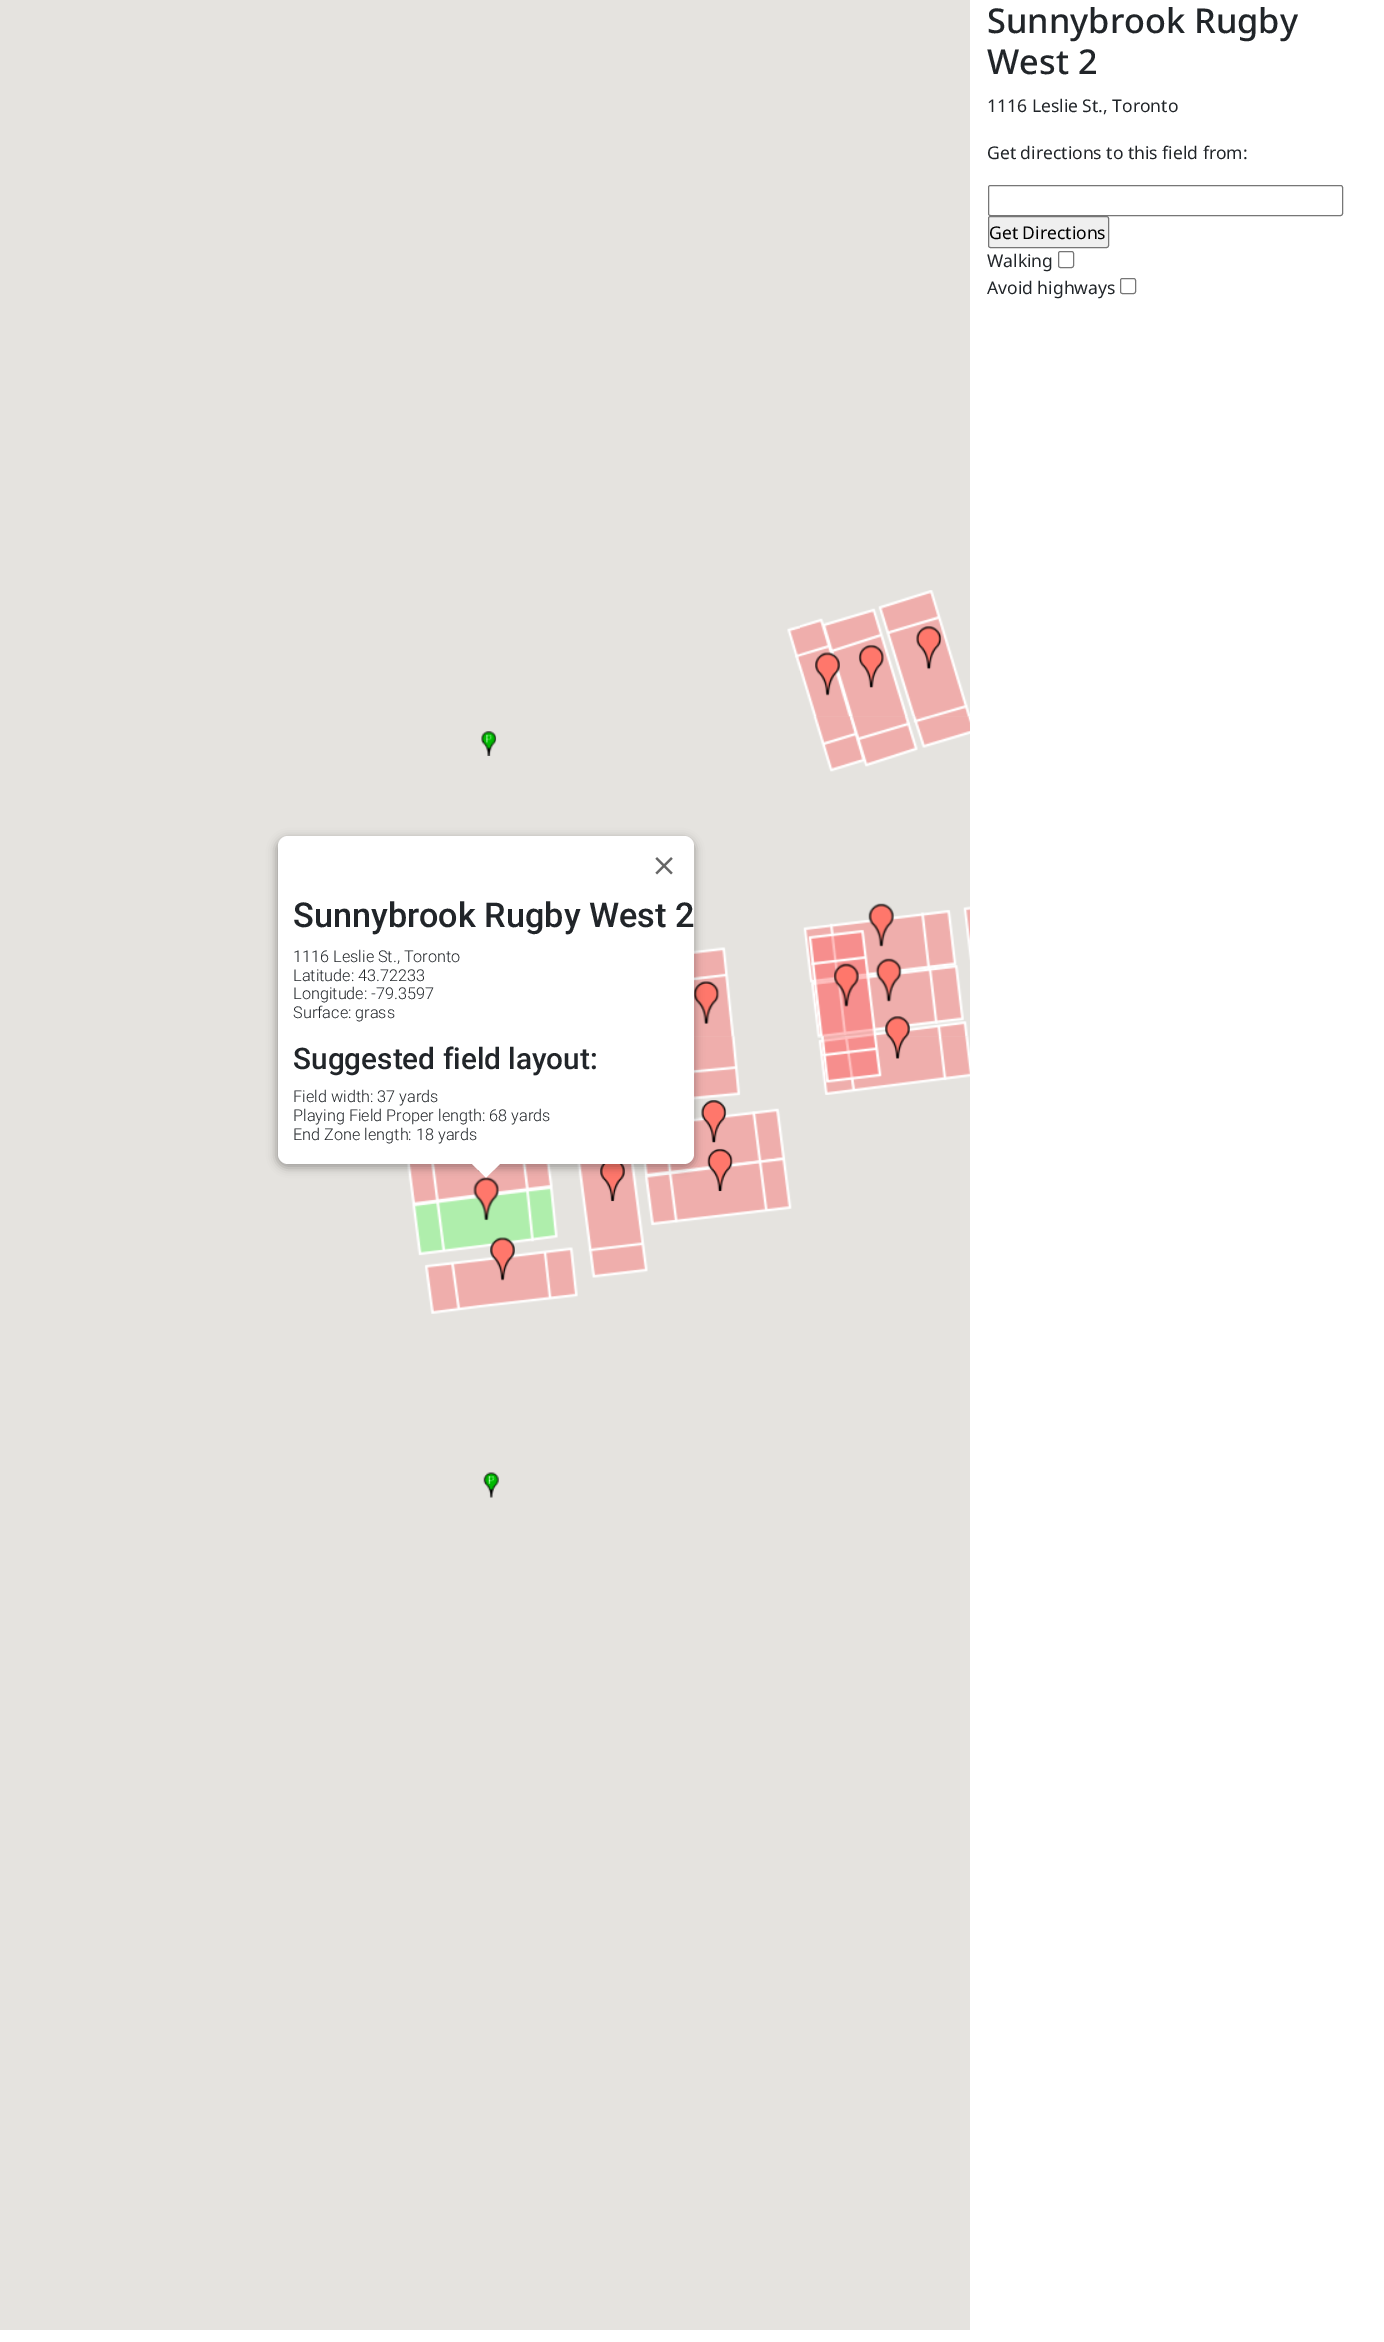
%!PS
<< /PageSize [1384 2342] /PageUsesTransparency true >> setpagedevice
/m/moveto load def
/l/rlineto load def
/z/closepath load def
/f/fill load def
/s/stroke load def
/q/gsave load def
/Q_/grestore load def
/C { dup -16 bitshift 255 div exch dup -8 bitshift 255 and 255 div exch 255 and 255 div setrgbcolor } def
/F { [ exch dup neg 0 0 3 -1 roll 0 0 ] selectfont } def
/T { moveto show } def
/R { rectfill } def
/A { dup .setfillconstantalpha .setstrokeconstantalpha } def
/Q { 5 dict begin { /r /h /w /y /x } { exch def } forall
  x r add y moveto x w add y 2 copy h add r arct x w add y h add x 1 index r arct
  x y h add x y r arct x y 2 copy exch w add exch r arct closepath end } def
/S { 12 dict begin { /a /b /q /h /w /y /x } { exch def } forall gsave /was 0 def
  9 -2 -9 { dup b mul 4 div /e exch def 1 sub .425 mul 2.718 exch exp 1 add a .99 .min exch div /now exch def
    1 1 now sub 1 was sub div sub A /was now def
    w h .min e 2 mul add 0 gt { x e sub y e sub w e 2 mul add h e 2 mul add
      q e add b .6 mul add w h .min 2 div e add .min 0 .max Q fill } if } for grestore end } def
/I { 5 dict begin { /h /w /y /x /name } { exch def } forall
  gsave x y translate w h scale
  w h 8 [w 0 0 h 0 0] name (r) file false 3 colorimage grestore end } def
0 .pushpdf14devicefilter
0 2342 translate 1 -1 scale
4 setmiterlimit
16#FFFFFF C
0 0 1384 2342 R
/NotoSans-Medium 34.25 F
16#212529 C
(Sunnybrook Rugby) 987 33 T
(West 2) 987 74 T
/NotoSans-Regular 17.5 F
(1116 Leslie St., Toronto) 987 112 T
(Get directions to this field from:) 987 159 T
16#767676 C
988.5 185.5 354 30 2 Q s
16#EFEFEF C
988.5 216.5 120 31 2 Q q f Q_
16#767676 C
s
16#000000 C
(Get Directions) 989 239 T
16#212529 C
(Walking) 987 267 T
16#767676 C
1058.5 251.5 15 16 2 Q s
16#212529 C
(Avoid highways) 987 294 T
16#767676 C
1120.5 278.5 15 15 2 Q s
16#E5E3DF C
0 0 970 2330 R
(1.rgb) 787 625 13 46 I
(4.rgb) 803 716 167 321 I
(2.rgb) 800 590 170 127 I
(5.rgb) 480 1036 312 272 I
(3.rgb) 694 947 41 90 I
(6.rgb) 817 1036 153 59 I
(7.rgb) 406 1164 74 150 I
(8.rgb) 815 652 25 44 I
(9.rgb) 858 644 26 44 I
(10.rgb) 916 626 26 44 I
(11.rgb) 481 731 16 25 I
(12.rgb) 868 903 26 44 I
(13.rgb) 694 981 26 43 I
(14.rgb) 834 963 25 44 I
(15.rgb) 875 958 27 44 I
(16.rgb) 885 1016 25 43 I
(17.rgb) 701 1100 26 43 I
(18.rgb) 477 1168 4 4 I
(19.rgb) 600 1164 25 38 I
(20.rgb) 707 1148 26 44 I
(21.rgb) 473 1177 26 44 I
(22.rgb) 490 1237 25 44 I
(23.rgb) 483 1472 16 26 I
16#000000 C
276 838 419 330 11 4.5 .3 S
16#FFFFFF C
278 836 416 328 10 Q f
(24.rgb) 655 857 18 18 I
/Roboto-Medium 34.25 F
16#212529 C
(Sunnybrook Rugby West 2) 293 927 T
/Roboto-Light 16.25 F
(1116 Leslie St., Toronto) 293 962 T
(Latitude: 43.72233) 293 981 T
(Longitude: -79.3597) 293 999 T
(Surface: grass) 293 1018 T
/Roboto-Medium 29.75 F
(Suggested field layout:) 293 1069 T
/Roboto-Light 16.25 F
(Field width: 37 yards) 293 1102 T
(Playing Field Proper length: 68 yards) 293 1121 T
(End Zone length: 18 yards) 293 1140 T
16#FFFFFF C
471 1163 m 15 14.5 l 15 -14.5 l z f
.poppdf14devicefilter showpage
